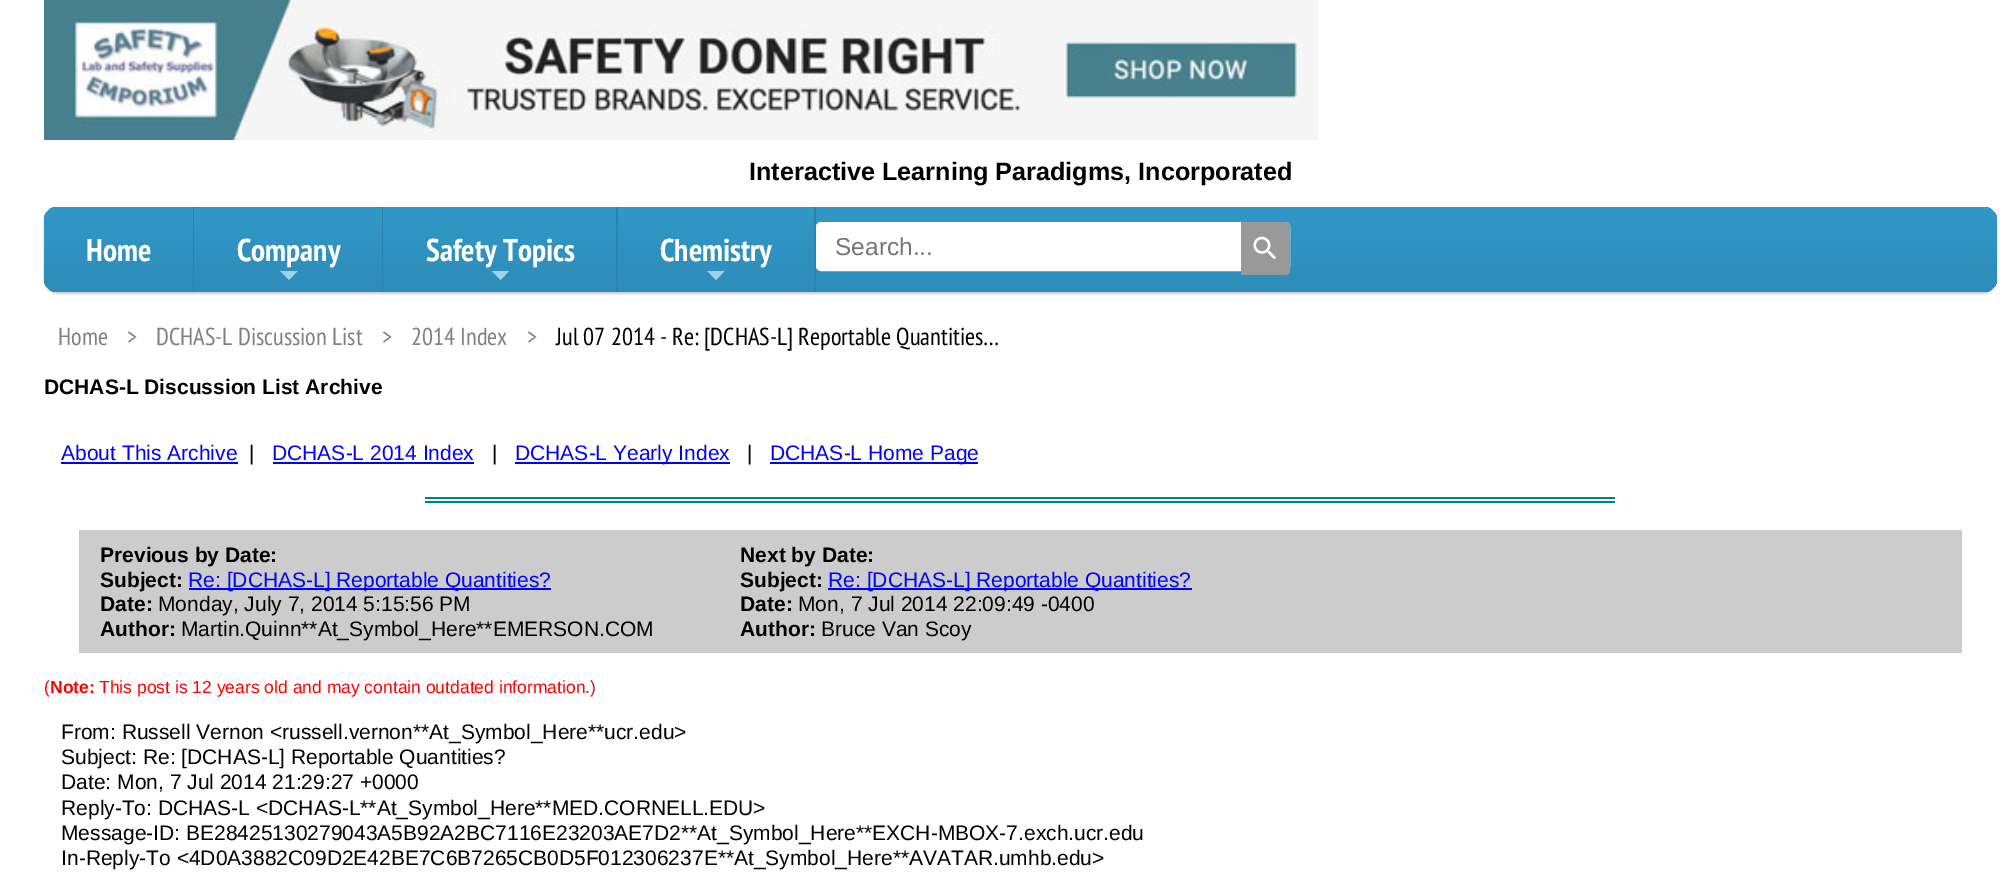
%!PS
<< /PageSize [2010 892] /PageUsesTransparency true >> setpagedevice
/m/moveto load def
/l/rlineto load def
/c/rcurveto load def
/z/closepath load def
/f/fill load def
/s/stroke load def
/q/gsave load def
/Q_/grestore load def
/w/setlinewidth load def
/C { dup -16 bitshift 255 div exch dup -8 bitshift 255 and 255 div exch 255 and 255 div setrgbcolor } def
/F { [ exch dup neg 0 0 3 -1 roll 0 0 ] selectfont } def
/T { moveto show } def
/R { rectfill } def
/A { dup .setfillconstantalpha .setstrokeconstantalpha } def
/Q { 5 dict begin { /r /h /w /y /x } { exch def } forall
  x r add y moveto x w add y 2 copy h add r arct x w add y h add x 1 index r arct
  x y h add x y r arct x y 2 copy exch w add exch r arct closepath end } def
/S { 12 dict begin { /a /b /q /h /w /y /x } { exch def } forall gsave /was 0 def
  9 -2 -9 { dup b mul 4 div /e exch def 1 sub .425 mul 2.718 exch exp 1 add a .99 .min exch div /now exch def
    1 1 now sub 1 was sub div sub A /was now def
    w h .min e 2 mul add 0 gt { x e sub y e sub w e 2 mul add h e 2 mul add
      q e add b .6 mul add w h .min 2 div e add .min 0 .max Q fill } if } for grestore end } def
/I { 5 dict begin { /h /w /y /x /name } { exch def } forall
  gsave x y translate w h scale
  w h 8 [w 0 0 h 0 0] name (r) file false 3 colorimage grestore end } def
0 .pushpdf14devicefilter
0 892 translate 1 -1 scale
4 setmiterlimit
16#FFFFFF C
0 0 2010 892 R
(1.rgb) 44 0 1274 140 I
/LiberationSans-Bold 25.2 F
16#000000 C
(Interactive Learning Paradigms, Incorporated) 749 180 T
44 208 1953 86 14 1 .2 S
q 44 207 1953 85 14 Q clip newpath
<< /ShadingType 2 /ColorSpace /DeviceRGB /Coords [1020 206 1020 292] /Extend [true true] /Function << /FunctionType 2 /Domain [0 1] /C0 [.196 .596 .784] /C1 [.18 .549 .722] /N 1 >> >> shfill Q_
q 58 207 m 135 0 l 0 85 l -135 0 l -7.5 0 -14 -6.5 -14 -14 c 0 -57 l 0 -7.5 6.5 -14 14 -14 c z clip newpath
<< /ShadingType 2 /ColorSpace /DeviceRGB /Coords [118 207 118 292] /Extend [true true] /Function << /FunctionType 2 /Domain [0 1] /C0 [.196 .596 .784] /C1 [.18 .549 .722] /N 1 >> >> shfill Q_
/PTSansNarrow-Bold 31.5 F
16#FFFFFF C
(Home) 86 261 T
16#2B82AC C
193 207 1 85 R
16#FFFFFF C
(Company) 237 261 T
16#A1D1E8 C
280 271 m 17.5 0 l -8.5 9 l z f
16#2B82AC C
382 207 1 85 R
16#FFFFFF C
(Safety Topics) 426 261 T
16#A1D1E8 C
492 271 m 17 0 l -8.5 9 l z f
16#2B82AC C
616 207 2 85 R
16#FFFFFF C
(Chemistry) 660 261 T
16#A1D1E8 C
707 271 m 17.5 0 l -8.5 9 l z f
16#2B82AC C
814 207 2 84 R
16#FFFFFF C
817 223 472 47 4 Q q f Q_
2 w
s
/LiberationSans-Regular 24.5 F
16#757575 C
(Search...) 835 255 T
16#999999 C
1241 222 m 44 0 l 3 0 5 2 5 5 c 0 43 l 0 3 -2 5 -5 5 c -44 0 l z f
(2.rgb) 1253 236 23 23 I
/PTSansNarrow-Regular 24.5 F
16#808080 C
(Home) 58 345 T
(>) 127 345 T
(DCHAS-L Discussion List) 156 345 T
(>) 382 345 T
(2014 Index) 411 345 T
(>) 527 345 T
16#000000 C
(Jul 07 2014 - Re: [DCHAS-L] Reportable Quantities…) 556 345 T
/LiberationSans-Bold 21 F
(DCHAS-L Discussion List Archive) 44 394 T
/LiberationSans-Regular 21 F
16#0000FF C
(About This Archive) 61 460 T
61 462 177 2 R
16#000000 C
(|) 249 460 T
16#0000FF C
(DCHAS-L 2014 Index) 272 460 T
273 462 201 2 R
16#000000 C
(|) 492 460 T
16#0000FF C
515 462 215 2 R
(DCHAS-L Yearly Index) 515 460 T
16#000000 C
(|) 747 460 T
16#0000FF C
770 462 208 2 R
(DCHAS-L Home Page) 770 460 T
16#008080 C
425 497 1190 2 R
425 501 1190 2 R
16#CCCCCC C
79 530 1883 123 R
/LiberationSans-Bold 21 F
16#000000 C
(Previous by Date:) 100 562 T
(Subject:) 100 587 T
16#0000FF C
189 588 362 2 R
/LiberationSans-Regular 21 F
(Re: [DCHAS-L] Reportable Quantities?) 188 587 T
/LiberationSans-Bold 21 F
16#000000 C
(Date:) 100 611 T
/LiberationSans-Regular 21 F
(Monday, July 7, 2014 5:15:56 PM) 158 611 T
/LiberationSans-Bold 21 F
(Author:) 100 636 T
/LiberationSans-Regular 21 F
(Martin.Quinn**At_Symbol_Here**EMERSON.COM) 181 636 T
/LiberationSans-Bold 21 F
(Next by Date:) 740 562 T
(Subject:) 740 587 T
16#0000FF C
828 588 364 2 R
/LiberationSans-Regular 21 F
(Re: [DCHAS-L] Reportable Quantities?) 828 587 T
/LiberationSans-Bold 21 F
16#000000 C
(Date:) 740 611 T
/LiberationSans-Regular 21 F
(Mon, 7 Jul 2014 22:09:49 -0400) 798 611 T
/LiberationSans-Bold 21 F
(Author:) 740 636 T
/LiberationSans-Regular 21 F
(Bruce Van Scoy) 821 636 T
/LiberationSans-Regular 17.5 F
16#FF0000 C
(\() 44 693 T
/LiberationSans-Bold 17.5 F
(Note:) 50 693 T
/LiberationSans-Regular 17.5 F
(This post is 12 years old and may contain outdated information.\)) 99 693 T
/LiberationSans-Regular 21 F
16#000000 C
(From: Russell Vernon <russell.vernon**At_Symbol_Here**ucr.edu>) 61 739 T
(Subject: Re: [DCHAS-L] Reportable Quantities?) 61 764 T
(Date: Mon, 7 Jul 2014 21:29:27 +0000) 61 789 T
(Reply-To: DCHAS-L <DCHAS-L**At_Symbol_Here**MED.CORNELL.EDU>) 61 815 T
(Message-ID: BE28425130279043A5B92A2BC7116E23203AE7D2**At_Symbol_Here**EXCH-MBOX-7.exch.ucr.edu) 61 840 T
(In-Reply-To <4D0A3882C09D2E42BE7C6B7265CB0D5F012306237E**At_Symbol_Here**AVATAR.umhb.edu>) 61 865 T
.poppdf14devicefilter showpage
